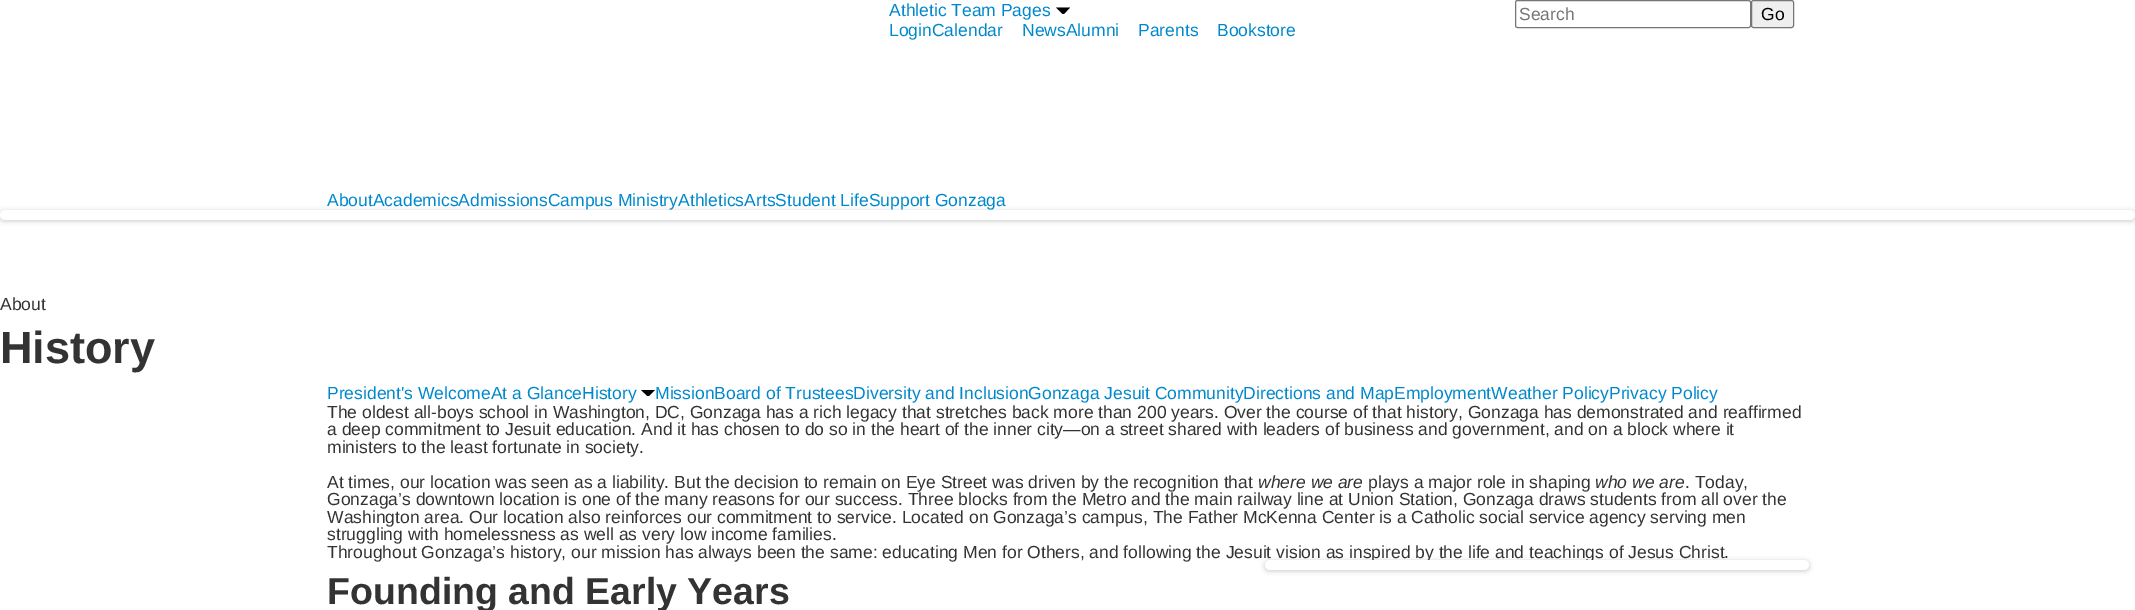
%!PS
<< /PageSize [2135 610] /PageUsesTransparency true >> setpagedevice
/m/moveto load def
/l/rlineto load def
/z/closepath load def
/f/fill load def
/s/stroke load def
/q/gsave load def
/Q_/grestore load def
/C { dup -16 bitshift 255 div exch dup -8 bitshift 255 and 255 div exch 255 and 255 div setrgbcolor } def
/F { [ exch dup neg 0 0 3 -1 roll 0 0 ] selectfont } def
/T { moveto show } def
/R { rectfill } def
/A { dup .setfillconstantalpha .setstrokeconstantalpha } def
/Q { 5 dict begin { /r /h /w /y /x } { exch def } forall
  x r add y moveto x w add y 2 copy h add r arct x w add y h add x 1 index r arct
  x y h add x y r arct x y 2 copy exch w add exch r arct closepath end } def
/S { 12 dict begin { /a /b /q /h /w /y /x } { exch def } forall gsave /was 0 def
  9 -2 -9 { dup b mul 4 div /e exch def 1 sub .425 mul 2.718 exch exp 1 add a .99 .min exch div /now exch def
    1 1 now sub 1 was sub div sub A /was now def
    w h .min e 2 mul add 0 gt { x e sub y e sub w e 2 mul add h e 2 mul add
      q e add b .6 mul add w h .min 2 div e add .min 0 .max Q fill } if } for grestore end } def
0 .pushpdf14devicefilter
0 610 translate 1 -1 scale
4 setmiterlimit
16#FFFFFF C
0 0 2135 610 R
/LiberationSans-Regular 17.5 F
16#0088CC C
(Athletic Team Pages) 889 16 T
16#000000 C
1056 7.5 m 14 0 l -6 6.5 l -1.5 0 l z f
16#0088CC C
(LoginCalendar) 889 36 T
(NewsAlumni) 1022 36 T
(Parents) 1138 36 T
(Bookstore) 1217 36 T
16#767676 C
1515.5 .5 235 27 2 Q s
16#757575 C
(Search) 1519 20 T
16#EFEFEF C
1751.5 .5 42 27 2 Q q f Q_
16#767676 C
s
16#000000 C
(Go) 1761 20 T
0 211 2135 10 5 2.5 .2 S
16#0088CC C
(AboutAcademicsAdmissionsCampus MinistryAthleticsArtsStudent LifeSupport Gonzaga) 327 206 T
16#FFFFFF C
0 210 2135 10 5 Q f
16#333333 C
(About) 0 310 T
/LiberationSans-Bold 45 F
(History) 0 363 T
/LiberationSans-Regular 17.5 F
16#0088CC C
(President's WelcomeAt a GlanceHistory) 327 399 T
16#000000 C
641 390 m 14 0 l -6 6 l -1.5 0 l z f
16#0088CC C
(MissionBoard of TrusteesDiversity and InclusionGonzaga Jesuit CommunityDirections and MapEmploymentWeather PolicyPrivacy Policy) 655 399 T
16#333333 C
(The oldest all-boys school in Washington, DC, Gonzaga has a rich legacy that stretches back more than 200 years. Over the course of that history, Gonzaga has demonstrated and reaffirmed) 327 418 T
(a deep commitment to Jesuit education. And it has chosen to do so in the heart of the inner city—on a street shared with leaders of business and government, and on a block where it) 327 435 T
(ministers to the least fortunate in society.) 327 453 T
(At times, our location was seen as a liability. But the decision to remain on Eye Street was driven by the recognition that) 327 488 T
/LiberationSans-Italic 17.5 F
(where we are) 1258 488 T
/LiberationSans-Regular 17.5 F
(plays a major role in shaping) 1368 488 T
/LiberationSans-Italic 17.5 F
(who we are) 1595 488 T
/LiberationSans-Regular 17.5 F
(. Today,) 1685 488 T
(Gonzaga’s downtown location is one of the many reasons for our success. Three blocks from the Metro and the main railway line at Union Station, Gonzaga draws students from all over the) 327 505 T
(Washington area. Our location also reinforces our commitment to service. Located on Gonzaga’s campus, The Father McKenna Center is a Catholic social service agency serving men) 327 523 T
(struggling with homelessness as well as very low income families.) 327 540 T
(Throughout Gonzaga’s history, our mission has always been the same: educating Men for Others, and following the Jesuit vision as inspired by the life and teachings of Jesus Christ.) 327 558 T
16#000000 C
1265 561 544 10 5 2.5 .2 S
16#FFFFFF C
1265 560 544 10 5 Q f
/LiberationSans-Bold 37.5 F
16#333333 C
(Founding and Early Years) 327 604 T
.poppdf14devicefilter showpage
